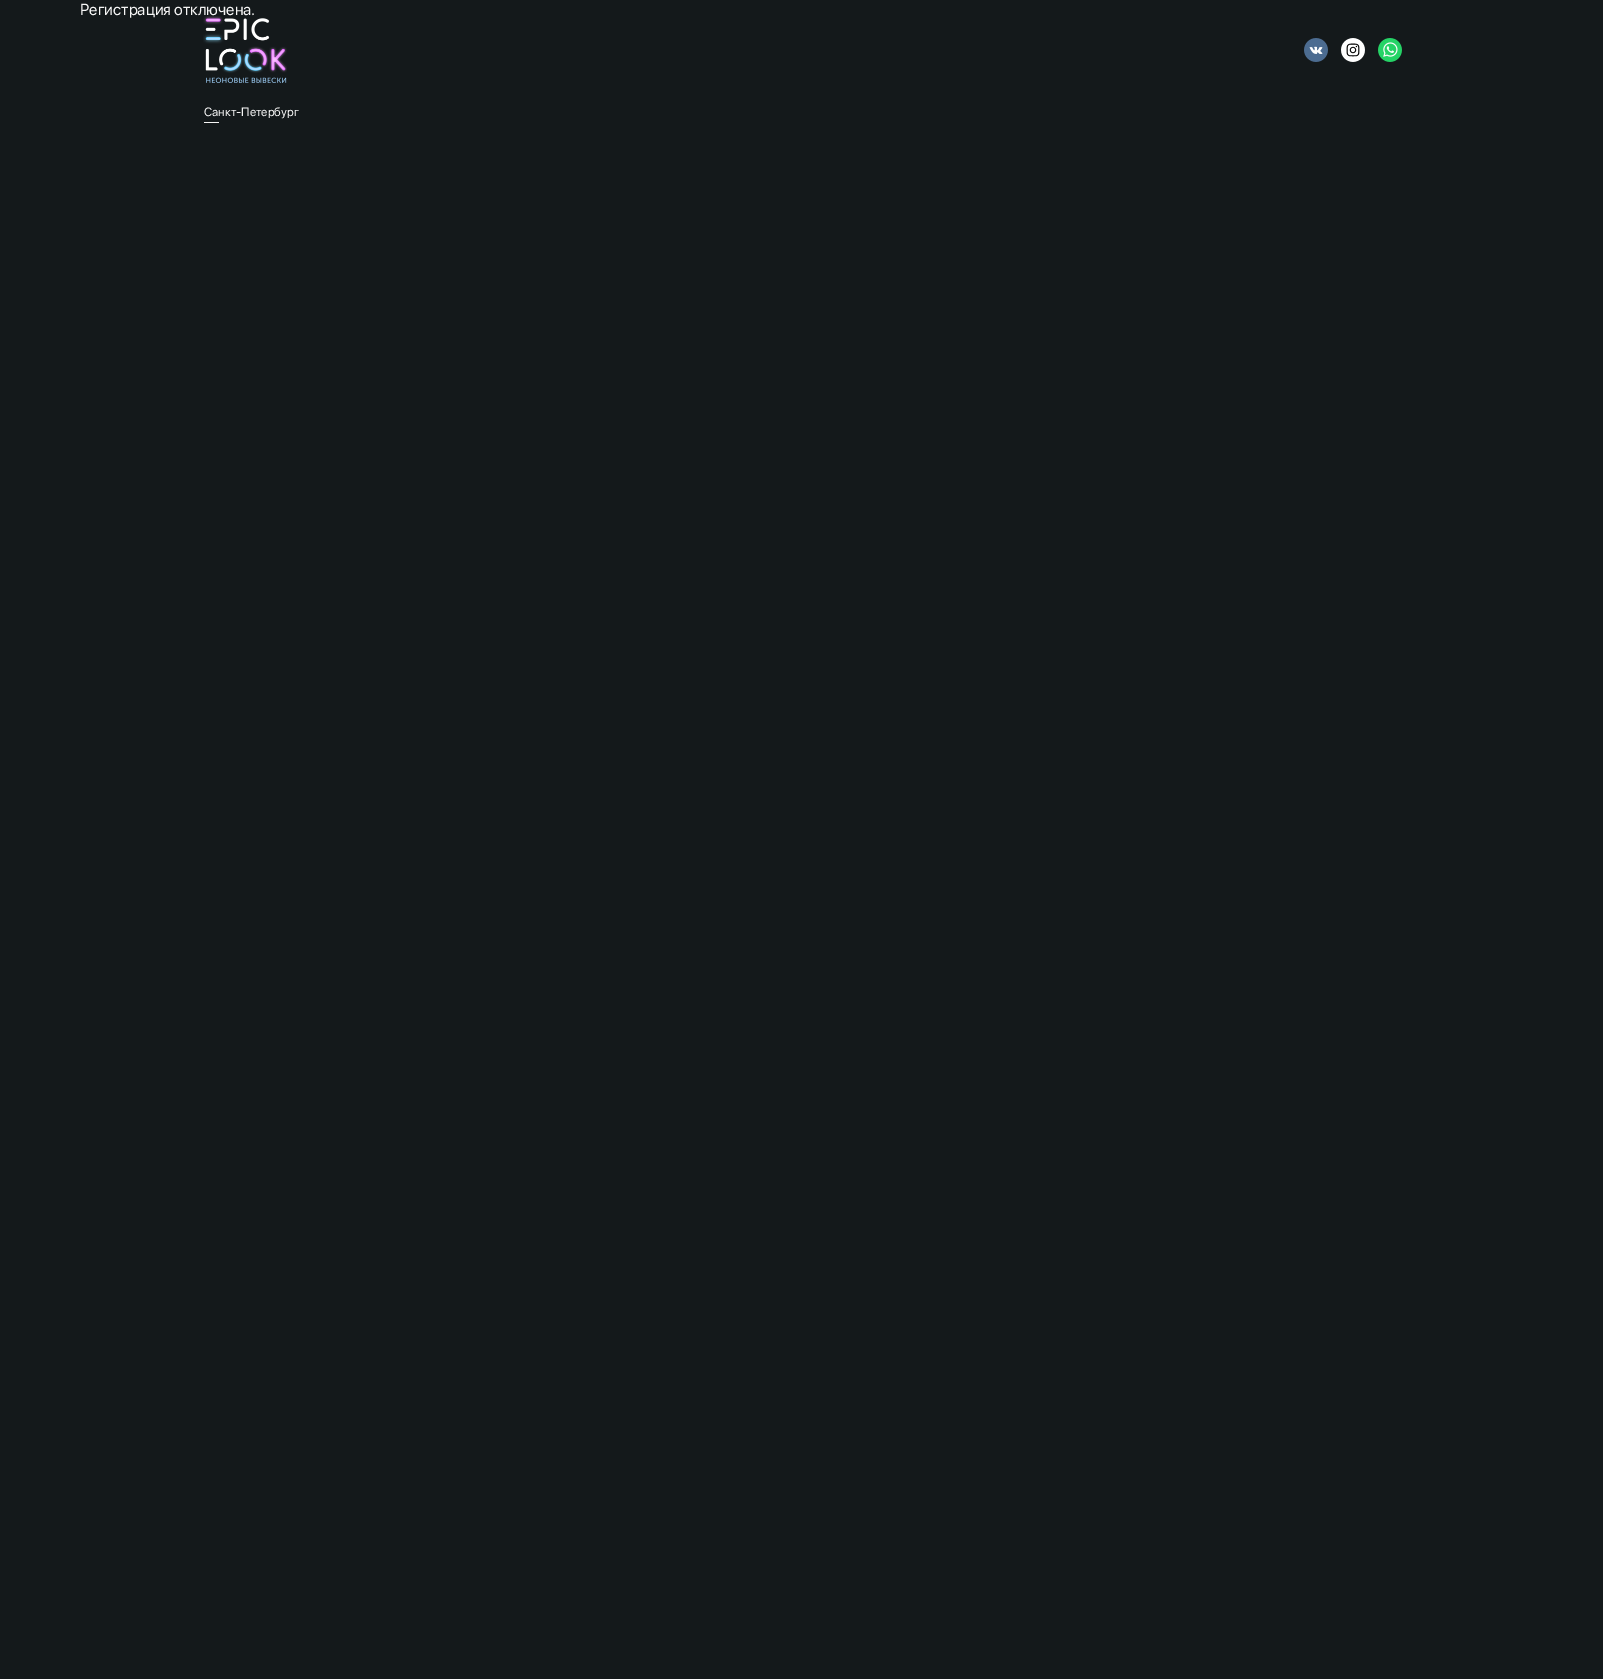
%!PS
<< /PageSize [1603 1679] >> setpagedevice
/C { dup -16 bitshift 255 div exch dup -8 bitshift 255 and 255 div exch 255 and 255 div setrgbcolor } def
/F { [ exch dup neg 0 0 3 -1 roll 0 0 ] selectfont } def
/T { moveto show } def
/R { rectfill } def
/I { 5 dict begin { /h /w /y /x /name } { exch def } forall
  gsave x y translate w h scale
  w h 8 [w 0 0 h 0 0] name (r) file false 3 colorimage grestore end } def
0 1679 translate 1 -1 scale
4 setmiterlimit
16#14191B C
0 0 1603 1679 R
/SFProDisplay-Regular 16 F
16#F5F5F5 C
(Регистрация отключена.) 80 15 T
(1.rgb) 1304 38 24 24 I
(2.rgb) 1341 38 24 24 I
(3.rgb) 1378 38 24 24 I
(4.rgb) 203 16 84 67 I
/SFProDisplay-Regular 12 F
(Санкт-Петербург) 204 116 T
204 122 15 1 R
showpage
